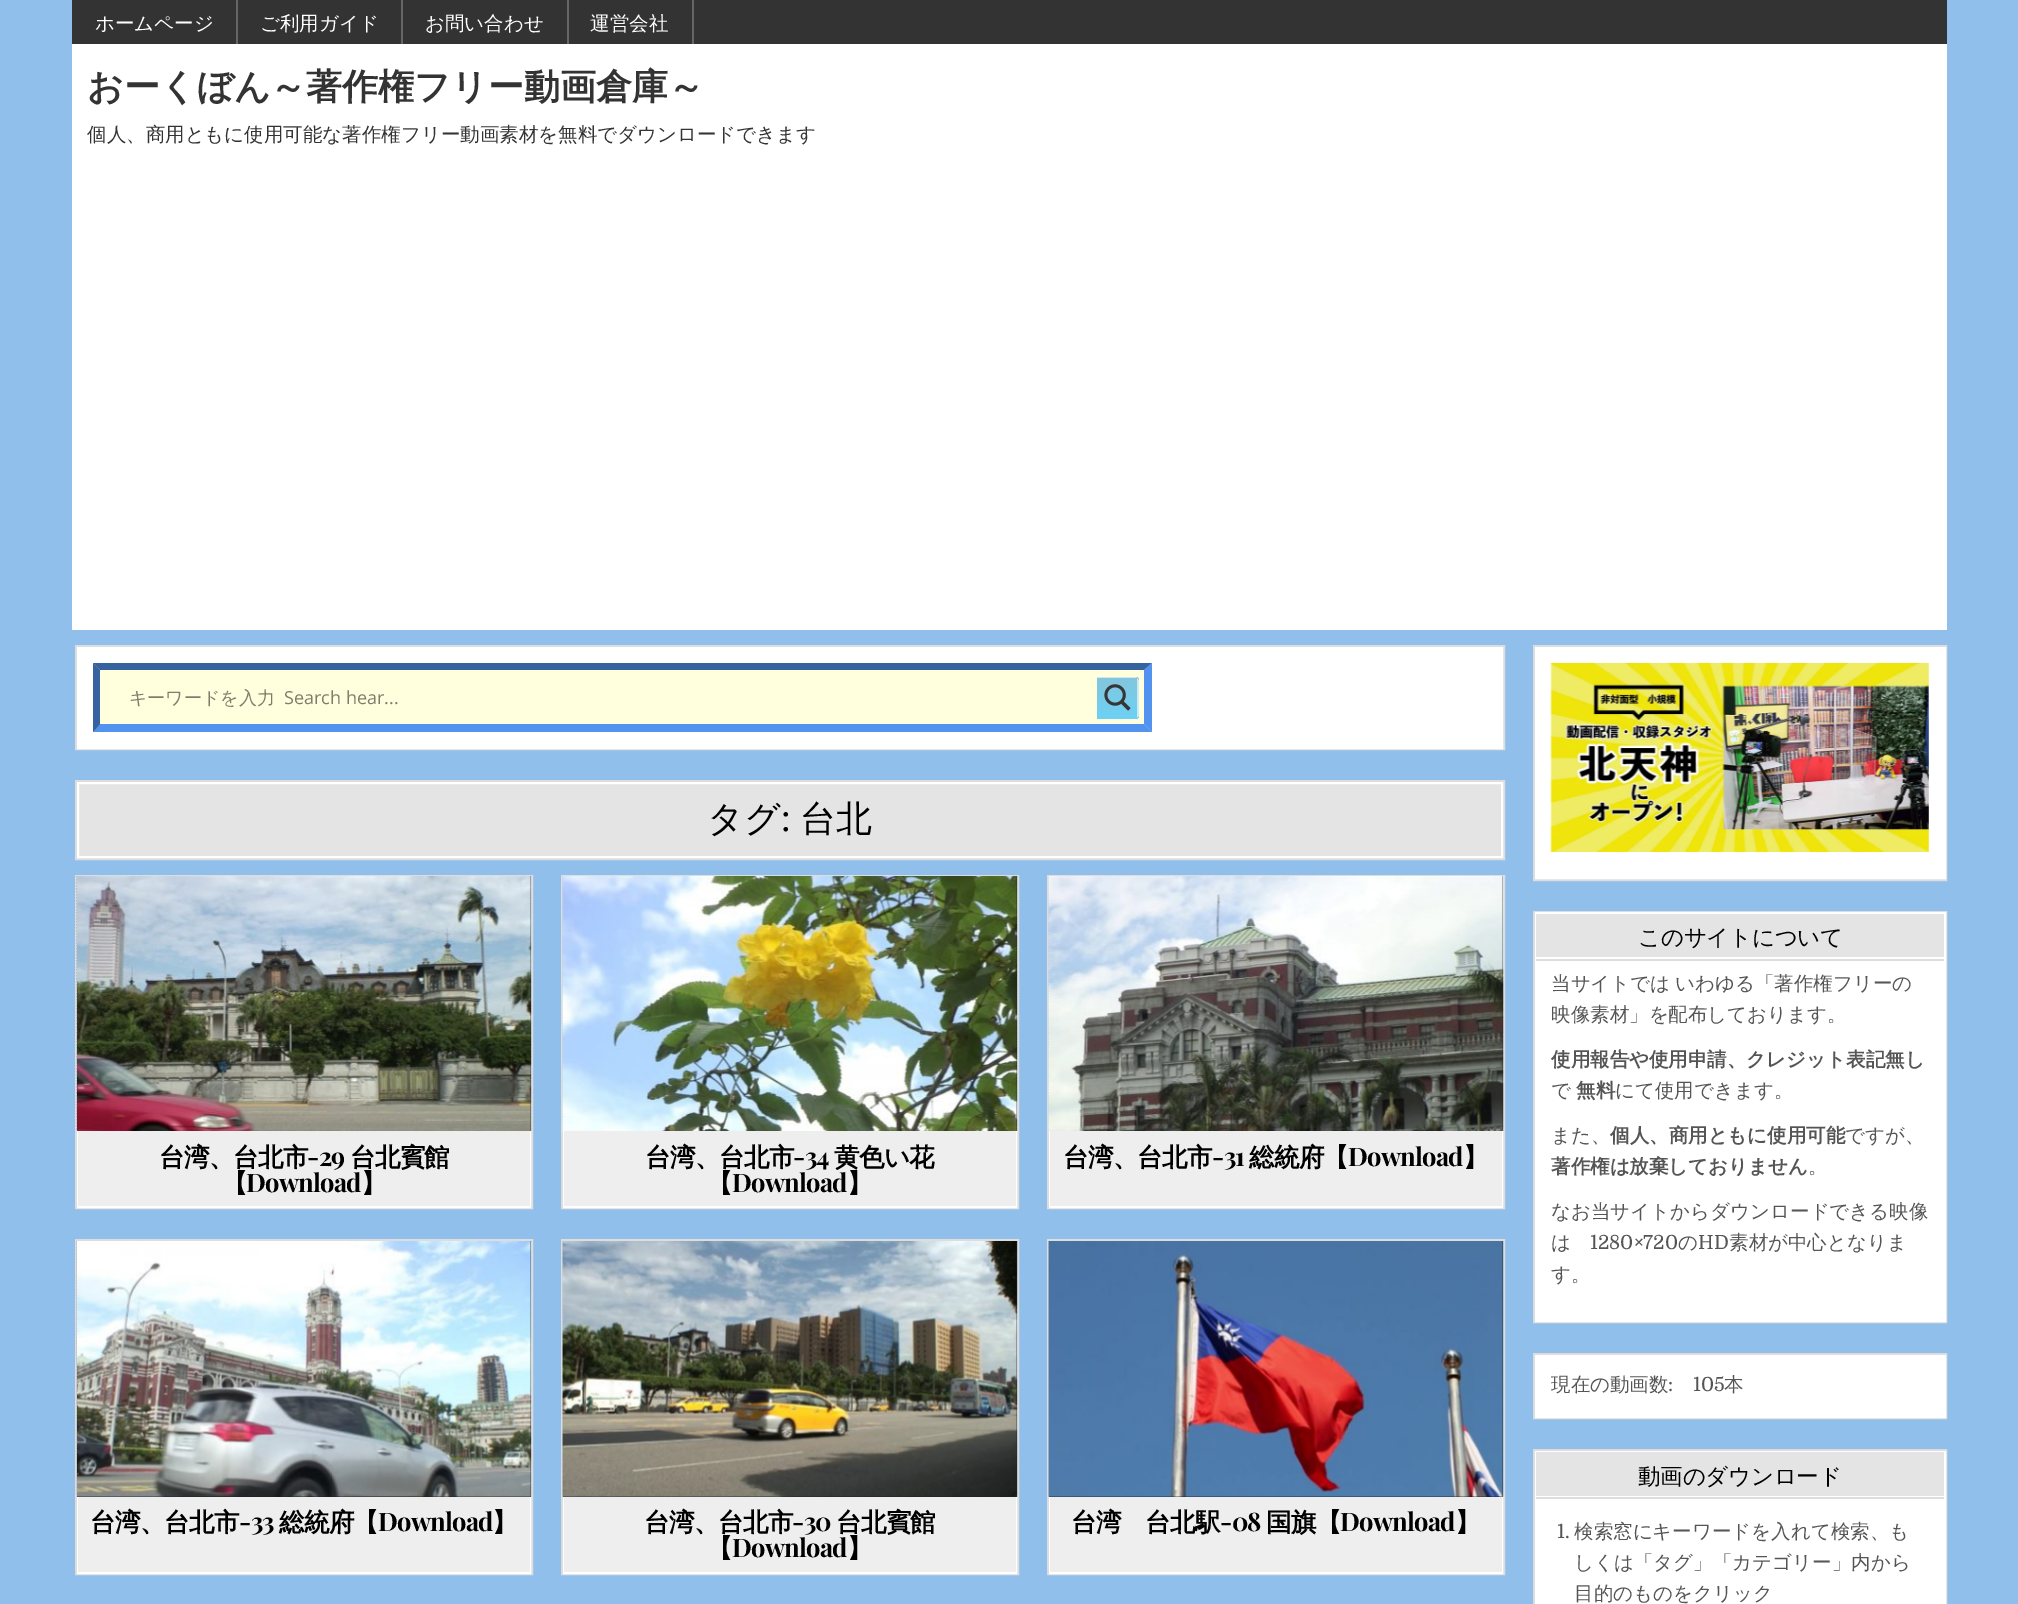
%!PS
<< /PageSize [2018 1604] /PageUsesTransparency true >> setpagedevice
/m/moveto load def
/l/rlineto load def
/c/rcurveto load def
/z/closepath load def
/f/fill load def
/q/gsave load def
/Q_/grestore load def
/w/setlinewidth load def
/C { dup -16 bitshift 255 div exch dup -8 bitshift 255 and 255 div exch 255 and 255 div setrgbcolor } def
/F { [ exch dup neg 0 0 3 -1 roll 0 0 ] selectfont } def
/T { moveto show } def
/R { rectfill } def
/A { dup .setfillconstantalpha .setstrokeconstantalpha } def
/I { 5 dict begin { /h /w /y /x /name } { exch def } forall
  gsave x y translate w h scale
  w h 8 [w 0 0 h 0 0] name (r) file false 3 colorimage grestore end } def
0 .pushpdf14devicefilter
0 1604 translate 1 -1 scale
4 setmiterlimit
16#8FBFEA C
0 0 2018 1604 R
16#333333 C
72 0 1875 44 R
16#666666 C
236 0 2 44 R
/WenQuanYiZenHei-Medium 19.5 F
16#FFFFFF C
(ホームページ) 95 30 T
16#666666 C
401 0 2 44 R
16#FFFFFF C
(ご利用ガイド) 260 30 T
16#666666 C
567 0 2 44 R
16#FFFFFF C
(お問い合わせ) 425 30 T
16#666666 C
692 0 2 44 R
16#FFFFFF C
(運営会社) 590 30 T
72 44 1875 586 R
/WenQuanYiZenHei-Bold 36 F
16#333333 C
(おーくぼん～著作権フリー動画倉庫～) 87 99 T
/WenQuanYiZenHei-Medium 19.5 F
(個人、商用ともに使用可能な著作権フリー動画素材を無料でダウンロードできます) 87 141 T
16#FFFFFF C
79 649 1422 98 R
16#DDDDDD C
2 w
76 646 1428 103 rectstroke
16#FFFFFF C
78 648 1424 100 rectstroke
16#FFFFDD C
93 663 1059 69 R
16#36629F C
93 663 m 1059 0 l -8 7 l -1044 0 l z f
16#5193EF C
1152 663 m 0 69 l -8 -8 l 0 -54 l z f
1152 732 m -1059 0 l 7 -8 l 1044 0 l z f
16#36629F C
93 732 m 0 -69 l 7 7 l 0 54 l z f
/WenQuanYiZenHei-Medium 18 F
16#7D7D6C C
(キーワードを入力) 129 704 T
/OpenSans-Regular 18 F
(Search hear...) 284 704 T
q 1097 677 m 37 0 l 3 0 5 2 5 5 c 0 32 l 0 3 -2 5 -5 5 c -37 0 l z clip newpath
<< /ShadingType 2 /ColorSpace /DeviceRGB /Coords [1118 677 1118 719] /Extend [true true] /Function << /FunctionType 2 /Domain [0 1] /C0 [.518 .773 .863] /C1 [.424 .82 .961] /N 1 >> >> shfill Q_
q
1097 677 42 42 rectclip
0.61 A
16#FFFFFF C
1095 678 m 0 41 l -147 0 l 0 -42 l 186 0 l 1 0 2 0 3 1 c z 1137 718 m 0 -40 l 1 1 2 2 2 4 c 0 32 l 0 2 -1 3 -2 4 c z eofill
Q_
(1.rgb) 1104 684 27 27 I
16#E4E4E4 C
79 784 1422 72 R
16#DDDDDD C
76 781 1428 78 rectstroke
16#FFFFFF C
78 783 1424 74 rectstroke
/WenQuanYiZenHei-Medium 36 F
16#000000 C
(タグ) 707 831 T
/PlayfairDisplay-Regular 36 F
(:) 781 831 T
/WenQuanYiZenHei-Medium 36 F
(台北) 800 831 T
16#DDDDDD C
76 876 456 332 rectstroke
16#FFFFFF C
78 877 452 330 rectstroke
16#1E2B34 C
530 876 1 255 R
(2.rgb) 76 876 456 254 I
(3.rgb) 77 876 455 255 I
16#EEEEEE C
78 1131 452 75 R
/WenQuanYiZenHei-Bold 25.5 F
16#000000 C
159 1166 m -.75 0 (台湾、台北市) ashow
/PlayfairDisplay-Bold 25.5 F
307 1166 m -.75 0 (-29) ashow
/WenQuanYiZenHei-Bold 25.5 F
350 1166 m -.75 0 (台北賓館) ashow
222 1192 m -.75 0 (【) ashow
/PlayfairDisplay-Bold 25.5 F
246 1192 m -.75 0 (Download) ashow
/WenQuanYiZenHei-Bold 25.5 F
361 1192 m -.75 0 (】) ashow
16#DDDDDD C
562 876 456 332 rectstroke
16#FFFFFF C
564 877 452 330 rectstroke
16#1E2B34 C
1016 876 1 255 R
(4.rgb) 562 876 456 254 I
(5.rgb) 562 876 456 255 I
16#EEEEEE C
564 1131 452 75 R
16#000000 C
645 1166 m -.75 0 (台湾、台北市) ashow
/PlayfairDisplay-Bold 25.5 F
793 1166 m -.75 0 (-34) ashow
/WenQuanYiZenHei-Bold 25.5 F
834 1166 m -.75 0 (黄色い花) ashow
707 1192 m -.75 0 (【) ashow
/PlayfairDisplay-Bold 25.5 F
732 1192 m -.75 0 (Download) ashow
/WenQuanYiZenHei-Bold 25.5 F
847 1192 m -.75 0 (】) ashow
16#DDDDDD C
1048 876 456 332 rectstroke
16#FFFFFF C
1050 877 452 330 rectstroke
16#1E2B34 C
1502 876 1 255 R
(6.rgb) 1048 876 455 254 I
(7.rgb) 1048 876 456 255 I
16#EEEEEE C
1050 1131 452 75 R
16#000000 C
1063 1166 m -.75 0 (台湾、台北市) ashow
/PlayfairDisplay-Bold 25.5 F
1212 1166 m -.75 0 (-31) ashow
/WenQuanYiZenHei-Bold 25.5 F
1249 1166 m -.75 0 (総統府【) ashow
/PlayfairDisplay-Bold 25.5 F
1348 1166 m -.75 0 (Download) ashow
/WenQuanYiZenHei-Bold 25.5 F
1463 1166 m -.75 0 (】) ashow
16#DDDDDD C
76 1240 456 334 rectstroke
16#FFFFFF C
78 1242 452 331 rectstroke
16#1E2B34 C
77 1241 454 256 R
(8.rgb) 76 1241 456 256 I
(9.rgb) 77 1241 455 256 I
16#EEEEEE C
78 1497 452 75 R
16#000000 C
90 1531 m -.75 0 (台湾、台北市) ashow
/PlayfairDisplay-Bold 25.5 F
239 1531 m -.75 0 (-33) ashow
/WenQuanYiZenHei-Bold 25.5 F
279 1531 m -.75 0 (総統府【) ashow
/PlayfairDisplay-Bold 25.5 F
378 1531 m -.75 0 (Download) ashow
/WenQuanYiZenHei-Bold 25.5 F
492 1531 m -.75 0 (】) ashow
16#DDDDDD C
562 1240 456 334 rectstroke
16#FFFFFF C
564 1242 452 331 rectstroke
16#1E2B34 C
563 1241 454 256 R
(10.rgb) 562 1241 456 256 I
(11.rgb) 562 1241 456 256 I
16#EEEEEE C
564 1497 452 75 R
16#000000 C
644 1531 m -.75 0 (台湾、台北市) ashow
/PlayfairDisplay-Bold 25.5 F
792 1531 m -.75 0 (-30) ashow
/WenQuanYiZenHei-Bold 25.5 F
836 1531 m -.75 0 (台北賓館) ashow
707 1557 m -.75 0 (【) ashow
/PlayfairDisplay-Bold 25.5 F
732 1557 m -.75 0 (Download) ashow
/WenQuanYiZenHei-Bold 25.5 F
847 1557 m -.75 0 (】) ashow
16#DDDDDD C
1048 1240 456 334 rectstroke
16#FFFFFF C
1050 1242 452 331 rectstroke
16#1E2B34 C
1049 1241 454 256 R
(12.rgb) 1048 1241 455 256 I
(13.rgb) 1048 1241 456 256 I
16#EEEEEE C
1050 1497 452 75 R
16#000000 C
1071 1531 m -.75 0 (台湾　台北駅) ashow
/PlayfairDisplay-Bold 25.5 F
1220 1531 m -.75 0 (-08) ashow
/WenQuanYiZenHei-Bold 25.5 F
1266 1531 m -.75 0 (国旗【) ashow
/PlayfairDisplay-Bold 25.5 F
1340 1531 m -.75 0 (Download) ashow
/WenQuanYiZenHei-Bold 25.5 F
1455 1531 m -.75 0 (】) ashow
16#FFFFFF C
1537 649 407 228 R
16#DDDDDD C
1534 646 412 234 rectstroke
16#FFFFFF C
1536 648 409 230 rectstroke
(14.rgb) 1550 663 379 189 I
1537 961 407 359 R
16#DDDDDD C
1534 912 412 410 rectstroke
16#FFFFFF C
1536 913 409 408 rectstroke
16#E4E4E4 C
1536 914 408 43 R
16#DDDDDD C
1536 959 408 2 R
16#FFFFFF C
1536 957 408 2 R
/WenQuanYiZenHei-Medium 22.5 F
16#000000 C
1638 945 m -.25 0 (このサイトについて) ashow
/WenQuanYiZenHei-Medium 19.5 F
16#555555 C
1551 990 m -1 0 32 (当サイトでは いわゆる「著作権フリーの) widthshow
(映像素材」を配布しております。) 1551 1021 T
/WenQuanYiZenHei-Bold 19.5 F
(使用報告や使用申請、クレジット表記無し) 1551 1066 T
/WenQuanYiZenHei-Medium 19.5 F
(で) 1551 1097 T
/WenQuanYiZenHei-Bold 19.5 F
(無料) 1576 1097 T
/WenQuanYiZenHei-Medium 19.5 F
(にて使用できます。) 1615 1097 T
(また、) 1551 1142 T
/WenQuanYiZenHei-Bold 19.5 F
(個人、商用ともに使用可能) 1610 1142 T
/WenQuanYiZenHei-Medium 19.5 F
(ですが、) 1845 1142 T
/WenQuanYiZenHei-Bold 19.5 F
(著作権は放棄しておりません) 1551 1173 T
/WenQuanYiZenHei-Medium 19.5 F
(。) 1808 1173 T
(なお当サイトからダウンロードできる映像) 1551 1218 T
(は) 1551 1249 T
/Domine-Regular 19.5 F
(1280×720) 1590 1249 T
/WenQuanYiZenHei-Medium 19.5 F
(の) 1678 1249 T
/Domine-Regular 19.5 F
(HD) 1698 1249 T
/WenQuanYiZenHei-Medium 19.5 F
(素材が中心となりま) 1729 1249 T
(す。) 1551 1281 T
16#FFFFFF C
1537 1357 407 59 R
16#DDDDDD C
1534 1354 412 64 rectstroke
16#FFFFFF C
1536 1356 409 61 rectstroke
16#555555 C
(現在の動画数) 1551 1391 T
/Domine-Regular 19.5 F
(:) 1668 1391 T
(105) 1693 1391 T
/WenQuanYiZenHei-Medium 19.5 F
(本) 1724 1391 T
16#FFFFFF C
1537 1499 407 105 R
16#DDDDDD C
1534 1450 412 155 rectstroke
16#FFFFFF C
1536 1452 409 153 rectstroke
16#E4E4E4 C
1536 1452 408 44 R
16#DDDDDD C
1536 1497 408 2 R
16#FFFFFF C
1536 1496 408 1 R
/WenQuanYiZenHei-Medium 22.5 F
16#000000 C
1638 1484 m -.25 0 (動画のダウンロード) ashow
/Domine-Regular 19.5 F
16#555555 C
(1.) 1557 1538 T
/WenQuanYiZenHei-Medium 19.5 F
(検索窓にキーワードを入れて検索、も) 1574 1538 T
(しくは「タグ」「カテゴリー」内から) 1574 1569 T
(目的のものをクリック) 1574 1600 T
.poppdf14devicefilter showpage
